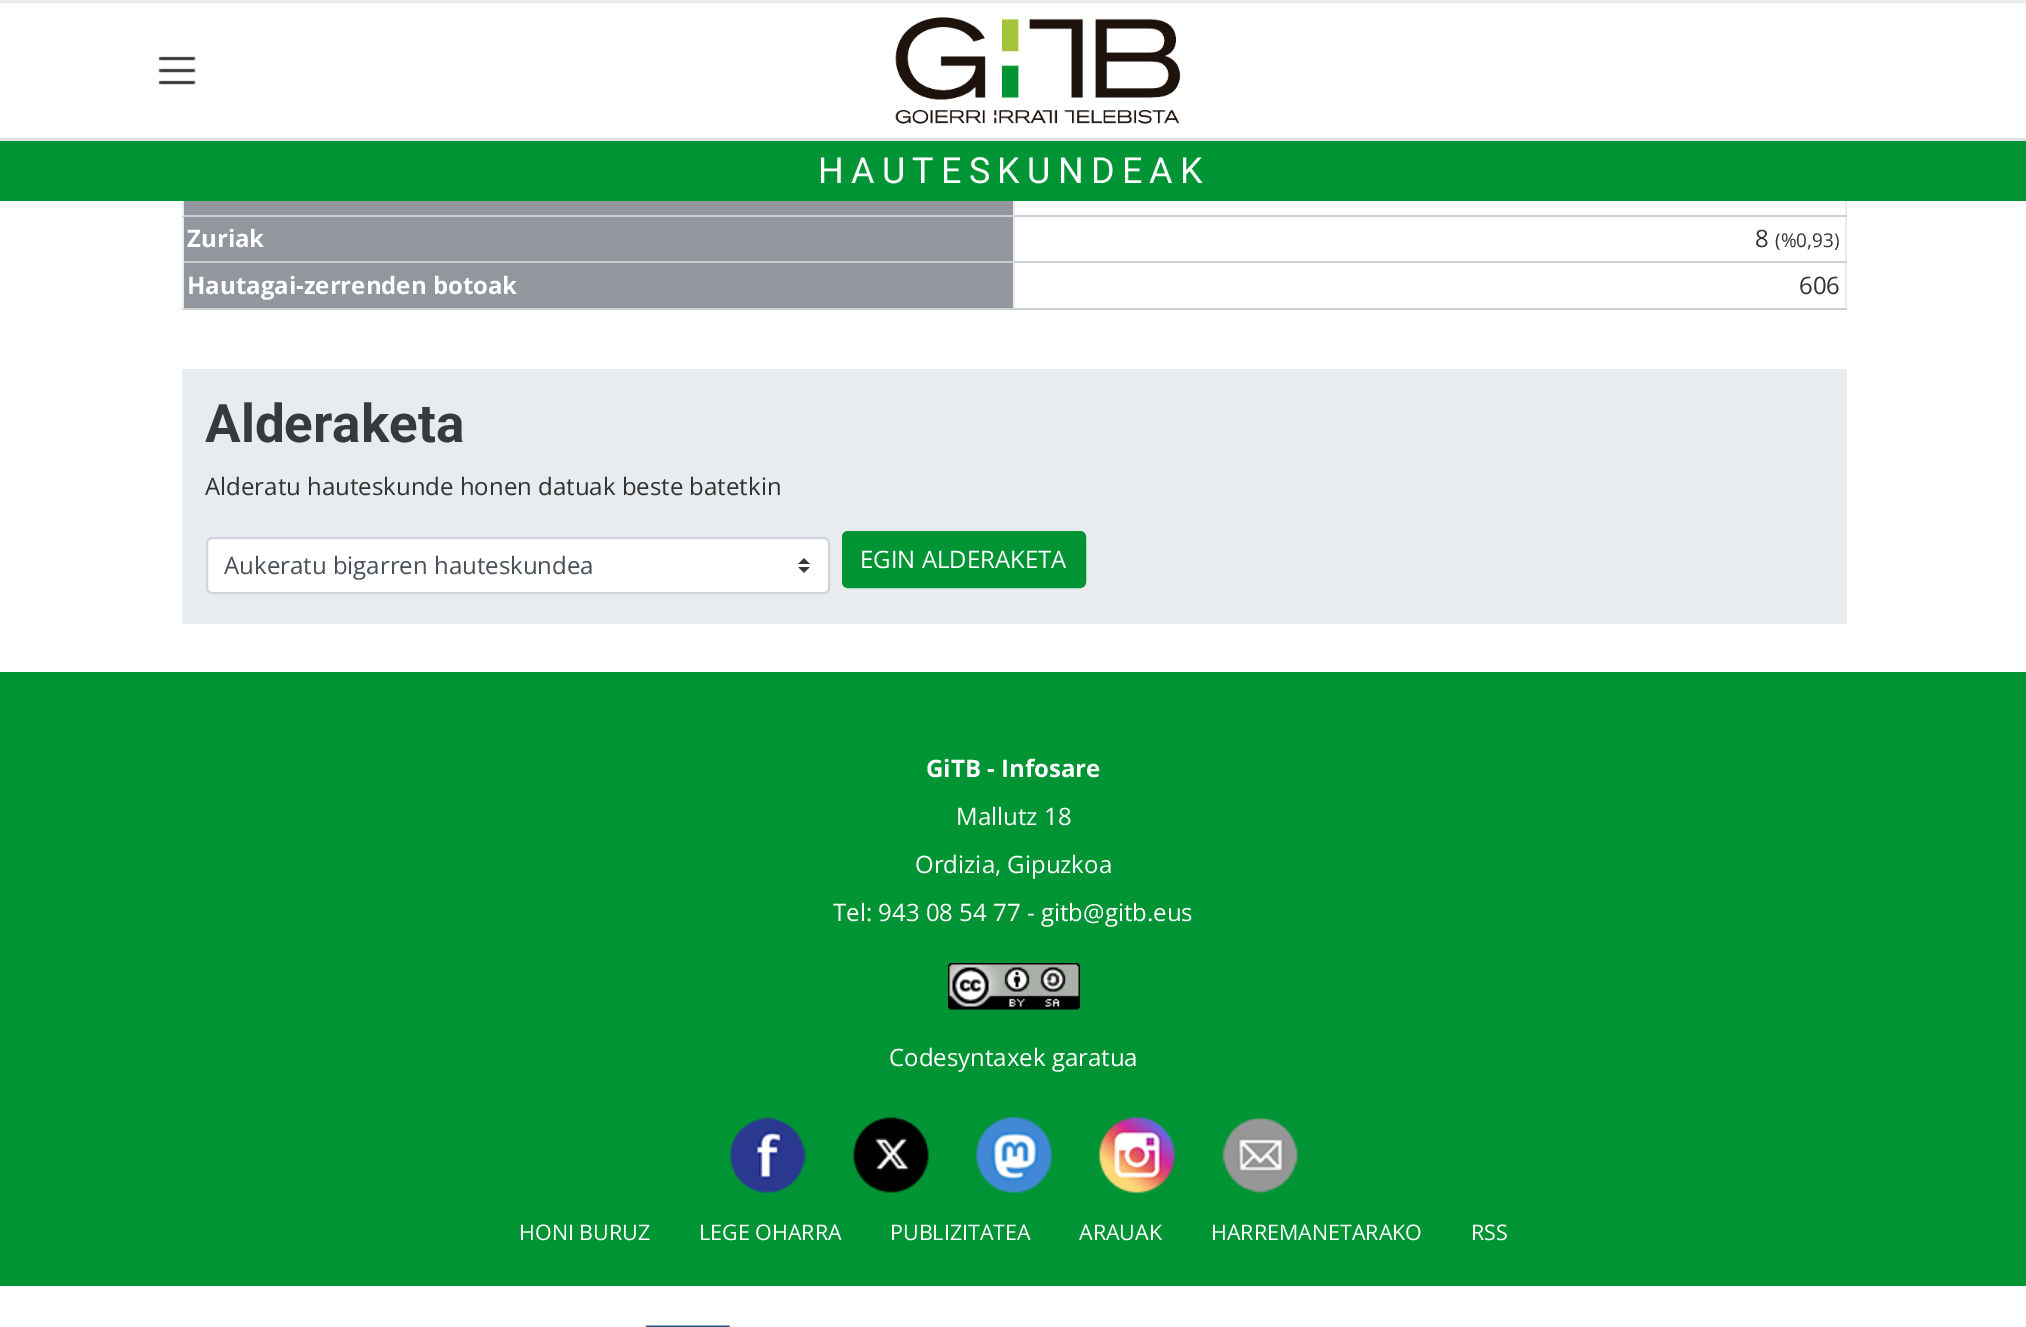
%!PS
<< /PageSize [2026 1327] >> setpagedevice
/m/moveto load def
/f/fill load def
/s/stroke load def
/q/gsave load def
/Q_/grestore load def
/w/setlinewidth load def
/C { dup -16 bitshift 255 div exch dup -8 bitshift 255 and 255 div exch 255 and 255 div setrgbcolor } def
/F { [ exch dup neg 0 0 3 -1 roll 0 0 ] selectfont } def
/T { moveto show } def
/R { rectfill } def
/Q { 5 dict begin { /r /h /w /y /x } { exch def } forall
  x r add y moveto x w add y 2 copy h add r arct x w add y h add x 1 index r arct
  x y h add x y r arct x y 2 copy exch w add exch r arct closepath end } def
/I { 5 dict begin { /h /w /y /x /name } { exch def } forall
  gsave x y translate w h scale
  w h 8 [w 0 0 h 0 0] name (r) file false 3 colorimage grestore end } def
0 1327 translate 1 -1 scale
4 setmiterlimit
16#FFFFFF C
0 0 2026 1327 R
16#E9ECEF C
0 0 2026 3 R
(1.rgb) 158 56 38 29 I
(2.rgb) 895 17 286 107 I
16#DEE2E6 C
0 138 2026 3 R
16#009434 C
0 141 2026 60 R
/Roboto-Regular 36 F
16#FFFFFF C
818 183 m 7.25 0 (HAUTESKUNDEAK) ashow
16#E9ECEF C
1845 201 2 108 R
16#91979D C
184 201 829 14 R
16#CDD0D3 C
1013 308 834 2 R
16#E9ECEF C
1013 261 2 48 R
16#CDD0D3 C
1013 261 834 2 R
16#E9ECEF C
1013 215 2 48 R
16#CDD0D3 C
1013 215 834 2 R
16#E9ECEF C
1013 201 2 15 R
16#CDD0D3 C
182 308 832 2 R
16#E9ECEF C
182 261 2 48 R
16#CDD0D3 C
182 261 832 2 R
16#E9ECEF C
182 215 2 48 R
16#CDD0D3 C
182 215 832 2 R
16#E9ECEF C
182 201 2 15 R
16#91979D C
184 217 829 44 R
/OpenSans-Bold 24 F
16#FFFFFF C
(Zuriak) 187 247 T
/OpenSans-Regular 24 F
16#333333 C
(8) 1755 247 T
/OpenSans-Regular 19 F
(\(%0,93\)) 1775 247 T
16#91979D C
184 263 829 45 R
/OpenSans-Bold 24 F
16#FFFFFF C
(Hautagai-zerrenden botoak) 187 294 T
/OpenSans-Regular 24 F
16#333333 C
(606) 1799 294 T
16#E9ECEF C
182 369 1665 255 R
/Roboto-Bold 53 F
16#343A40 C
(Alderaketa) 205 442 T
/OpenSans-Regular 24 F
16#333333 C
(Alderatu hauteskunde honen datuak beste batetkin) 205 495 T
16#FFFFFF C
206 537 624 57 6 Q f
(3.rgb) 798 558 12 15 I
16#CED4DA C
2 w
207 538 622 55 5 Q s
16#495057 C
(Aukeratu bigarren hauteskundea) 224 574 T
16#009434 C
843 532 242 55 5 Q q f Q_
s
16#FFFFFF C
(EGIN ALDERAKETA) 860 568 T
16#009434 C
0 672 2026 614 R
/OpenSans-Bold 24 F
16#FFFFFF C
(GiTB - Infosare) 926 777 T
/OpenSans-Regular 24 F
(Mallutz 18) 956 825 T
(Ordizia, Gipuzkoa) 915 873 T
(Tel: 943 08 54 77 - gitb@gitb.eus) 833 921 T
(4.rgb) 948 963 132 47 I
(Codesyntaxek garatua) 889 1066 T
(5.rgb) 730 1117 76 76 I
(6.rgb) 853 1117 76 76 I
(7.rgb) 976 1117 76 76 I
(8.rgb) 1099 1117 76 76 I
(9.rgb) 1222 1117 76 76 I
/OpenSans-Regular 21.5 F
(HONI BURUZ) 519 1240 T
(LEGE OHARRA) 699 1240 T
(PUBLIZITATEA) 890 1240 T
(ARAUAK) 1079 1240 T
(HARREMANETARAKO) 1211 1240 T
(RSS) 1471 1240 T
(10.rgb) 645 1325 85 2 I
showpage
